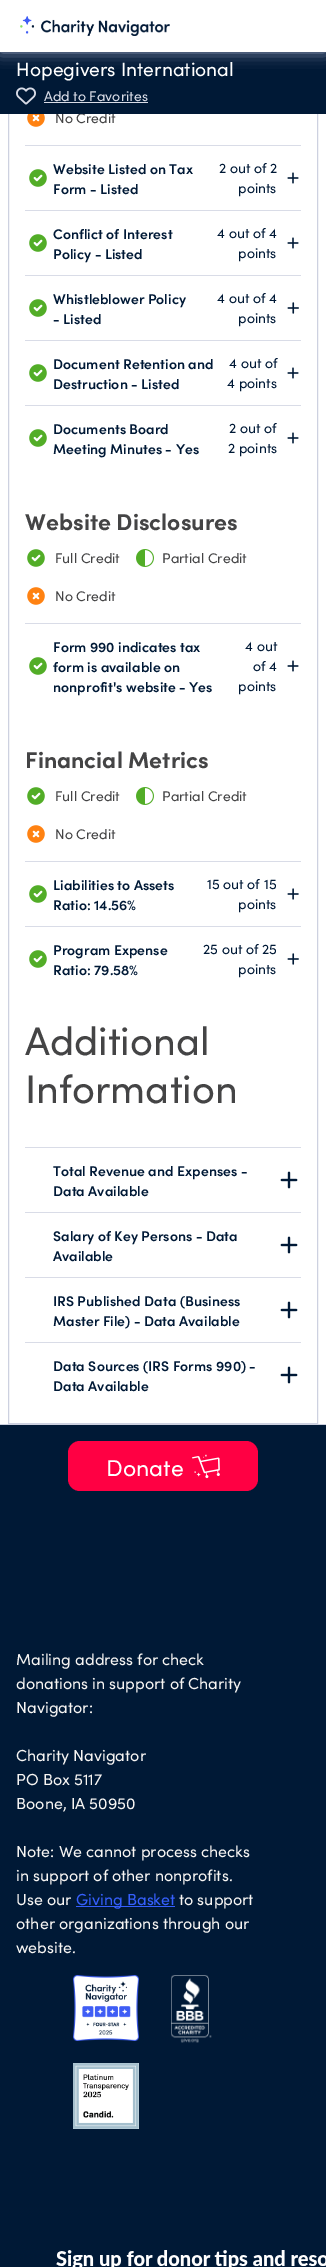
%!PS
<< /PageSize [326 2267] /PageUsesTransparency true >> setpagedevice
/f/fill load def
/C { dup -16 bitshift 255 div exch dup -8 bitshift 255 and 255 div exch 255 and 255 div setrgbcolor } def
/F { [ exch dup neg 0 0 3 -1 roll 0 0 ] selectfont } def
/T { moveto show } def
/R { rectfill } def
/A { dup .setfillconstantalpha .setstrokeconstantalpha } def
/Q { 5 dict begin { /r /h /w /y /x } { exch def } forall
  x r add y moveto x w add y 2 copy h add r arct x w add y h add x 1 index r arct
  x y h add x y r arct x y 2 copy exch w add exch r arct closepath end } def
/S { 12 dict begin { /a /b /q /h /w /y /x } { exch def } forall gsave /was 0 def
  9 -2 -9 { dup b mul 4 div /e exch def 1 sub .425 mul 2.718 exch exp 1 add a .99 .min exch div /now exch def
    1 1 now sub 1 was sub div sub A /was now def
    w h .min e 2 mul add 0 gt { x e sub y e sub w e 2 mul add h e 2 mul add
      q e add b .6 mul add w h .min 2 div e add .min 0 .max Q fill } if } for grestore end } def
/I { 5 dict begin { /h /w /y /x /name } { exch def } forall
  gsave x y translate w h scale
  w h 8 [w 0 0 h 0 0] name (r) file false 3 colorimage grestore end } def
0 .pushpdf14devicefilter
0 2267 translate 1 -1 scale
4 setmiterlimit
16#FFFFFF C
0 0 326 2267 R
16#CDD1E0 C
8.5 -.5 309 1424 rectstroke
/Sofia-Regular 14 F
16#444445 C
(No Credit) 55 123 T
16#001936 C
0 52 326 62 R
16#9BA3C0 C
0 0 326 52 0 7.5 1 S
16#FFFFFF C
0 0 326 52 R
(1.rgb) 20 16 150 20 I
/Sofia-Regular 19.25 F
(Hopegivers International) 16 76 T
(2.rgb) 16 87 20 18 I
/Sofia-Regular 14 F
16#D9DCE7 C
(Add to Favorites) 44 101 T
44 102 104 1 R
(3.rgb) 27 114 18 13 I
25 145 276 1 R
(4.rgb) 29 169 18 18 I
/Sofia-SemiBold 14 F
16#001936 C
(Website Listed on Tax) 53 174 T
(Form - Listed) 53 194 T
/Sofia-Regular 14 F
(2 out of 2) 219 173 T
(points) 238 193 T
(5.rgb) 287 172 12 12 I
16#D9DCE7 C
25 210 276 1 R
(4.rgb) 29 234 18 18 I
/Sofia-SemiBold 14 F
16#001936 C
(Conflict of Interest) 53 239 T
(Policy - Listed) 53 259 T
/Sofia-Regular 14 F
(4 out of 4) 217 238 T
(points) 238 258 T
(5.rgb) 287 237 12 12 I
16#D9DCE7 C
25 275 276 1 R
(4.rgb) 29 299 18 18 I
/Sofia-SemiBold 14 F
16#001936 C
(Whistleblower Policy) 53 304 T
(- Listed) 53 324 T
/Sofia-Regular 14 F
(4 out of 4) 217 303 T
(points) 238 323 T
(6.rgb) 287 302 12 12 I
16#D9DCE7 C
25 340 276 1 R
(4.rgb) 29 364 18 18 I
/Sofia-SemiBold 14 F
16#001936 C
(Document Retention and) 53 369 T
(Destruction - Listed) 53 389 T
/Sofia-Regular 14 F
(4 out of) 229 368 T
(4 points) 227 388 T
(5.rgb) 287 367 12 12 I
16#D9DCE7 C
25 405 276 1 R
(4.rgb) 29 429 18 18 I
/Sofia-SemiBold 14 F
16#001936 C
(Documents Board) 53 434 T
(Meeting Minutes - Yes) 53 454 T
/Sofia-Regular 14 F
(2 out of) 229 433 T
(2 points) 228 453 T
(5.rgb) 287 432 12 12 I
/Sofia-Bold 23 F
16#444445 C
(Website Disclosures) 25 530 T
(4.rgb) 27 549 18 18 I
/Sofia-Regular 14 F
(Full Credit) 55 563 T
(7.rgb) 136 549 18 18 I
(Partial Credit) 162 563 T
(8.rgb) 27 587 18 18 I
(No Credit) 55 601 T
16#D9DCE7 C
25 623 276 1 R
(4.rgb) 29 657 18 18 I
/Sofia-SemiBold 14 F
16#001936 C
(Form 990 indicates tax) 53 652 T
(form is available on) 53 672 T
(nonprofit's website - Yes) 53 692 T
/Sofia-Regular 14 F
(4 out) 245 651 T
(of 4) 253 671 T
(points) 238 691 T
(5.rgb) 287 660 12 12 I
/Sofia-Bold 23 F
16#444445 C
(Financial Metrics) 25 768 T
(4.rgb) 27 787 18 18 I
/Sofia-Regular 14 F
(Full Credit) 55 801 T
(7.rgb) 136 787 18 18 I
(Partial Credit) 162 801 T
(8.rgb) 27 825 18 18 I
(No Credit) 55 839 T
16#D9DCE7 C
25 861 276 1 R
(4.rgb) 29 885 18 18 I
/Sofia-SemiBold 14 F
16#001936 C
(Liabilities to Assets) 53 890 T
(Ratio: 14.56%) 53 910 T
/Sofia-Regular 14 F
(15 out of 15) 207 889 T
(points) 238 909 T
(9.rgb) 287 888 12 12 I
16#D9DCE7 C
25 926 276 1 R
(4.rgb) 29 950 18 18 I
/Sofia-SemiBold 14 F
16#001936 C
(Program Expense) 53 955 T
(Ratio: 79.58%) 53 975 T
/Sofia-Regular 14 F
(25 out of 25) 203 954 T
(points) 238 974 T
(10.rgb) 287 953 12 12 I
/Sofia-Regular 39.75 F
16#444445 C
(Additional) 25 1055 T
(Information) 25 1103 T
16#D9DCE7 C
25 1147 276 1 R
/Sofia-SemiBold 14 F
16#001936 C
(Total Revenue and Expenses -) 53 1176 T
(Data Available) 53 1196 T
(11.rgb) 280 1171 18 18 I
16#D9DCE7 C
25 1212 276 1 R
16#001936 C
(Salary of Key Persons - Data) 53 1241 T
(Available) 53 1261 T
(11.rgb) 280 1236 18 18 I
16#D9DCE7 C
25 1277 276 1 R
16#001936 C
(IRS Published Data \(Business) 53 1306 T
(Master File\) - Data Available) 53 1326 T
(11.rgb) 280 1301 18 18 I
16#D9DCE7 C
25 1342 276 1 R
16#001936 C
(Data Sources \(IRS Forms 990\) -) 53 1371 T
(Data Available) 53 1391 T
(11.rgb) 280 1366 18 18 I
16#CDD1E0 C
0 1424 326 1 R
16#001936 C
0 1425 326 842 R
16#FF0043 C
68 1441 190 50 12 Q f
/Sofia-Regular 23 F
16#FFFFFF C
(Donate) 106 1476 T
(12.rgb) 192 1454 28 25 I
/Sofia-Regular 16 F
16#F7F5F3 C
(Mailing address for check) 16 1665 T
(donations in support of Charity) 16 1689 T
(Navigator:) 16 1713 T
(Charity Navigator) 16 1761 T
(PO Box 5117) 16 1785 T
(Boone, IA 50950) 16 1809 T
(Note: We cannot process checks) 16 1857 T
(in support of other nonprofits.) 16 1881 T
(Use our) 16 1905 T
16#355FFE C
76 1906 99 1 R
(Giving Basket) 76 1905 T
16#F7F5F3 C
(to support) 179 1905 T
(other organizations through our) 16 1929 T
(website.) 16 1953 T
(13.rgb) 73 1975 66 66 I
(14.rgb) 171 1975 41 68 I
(15.rgb) 73 2063 66 66 I
(16.rgb) 56 2250 270 17 I
.poppdf14devicefilter showpage
